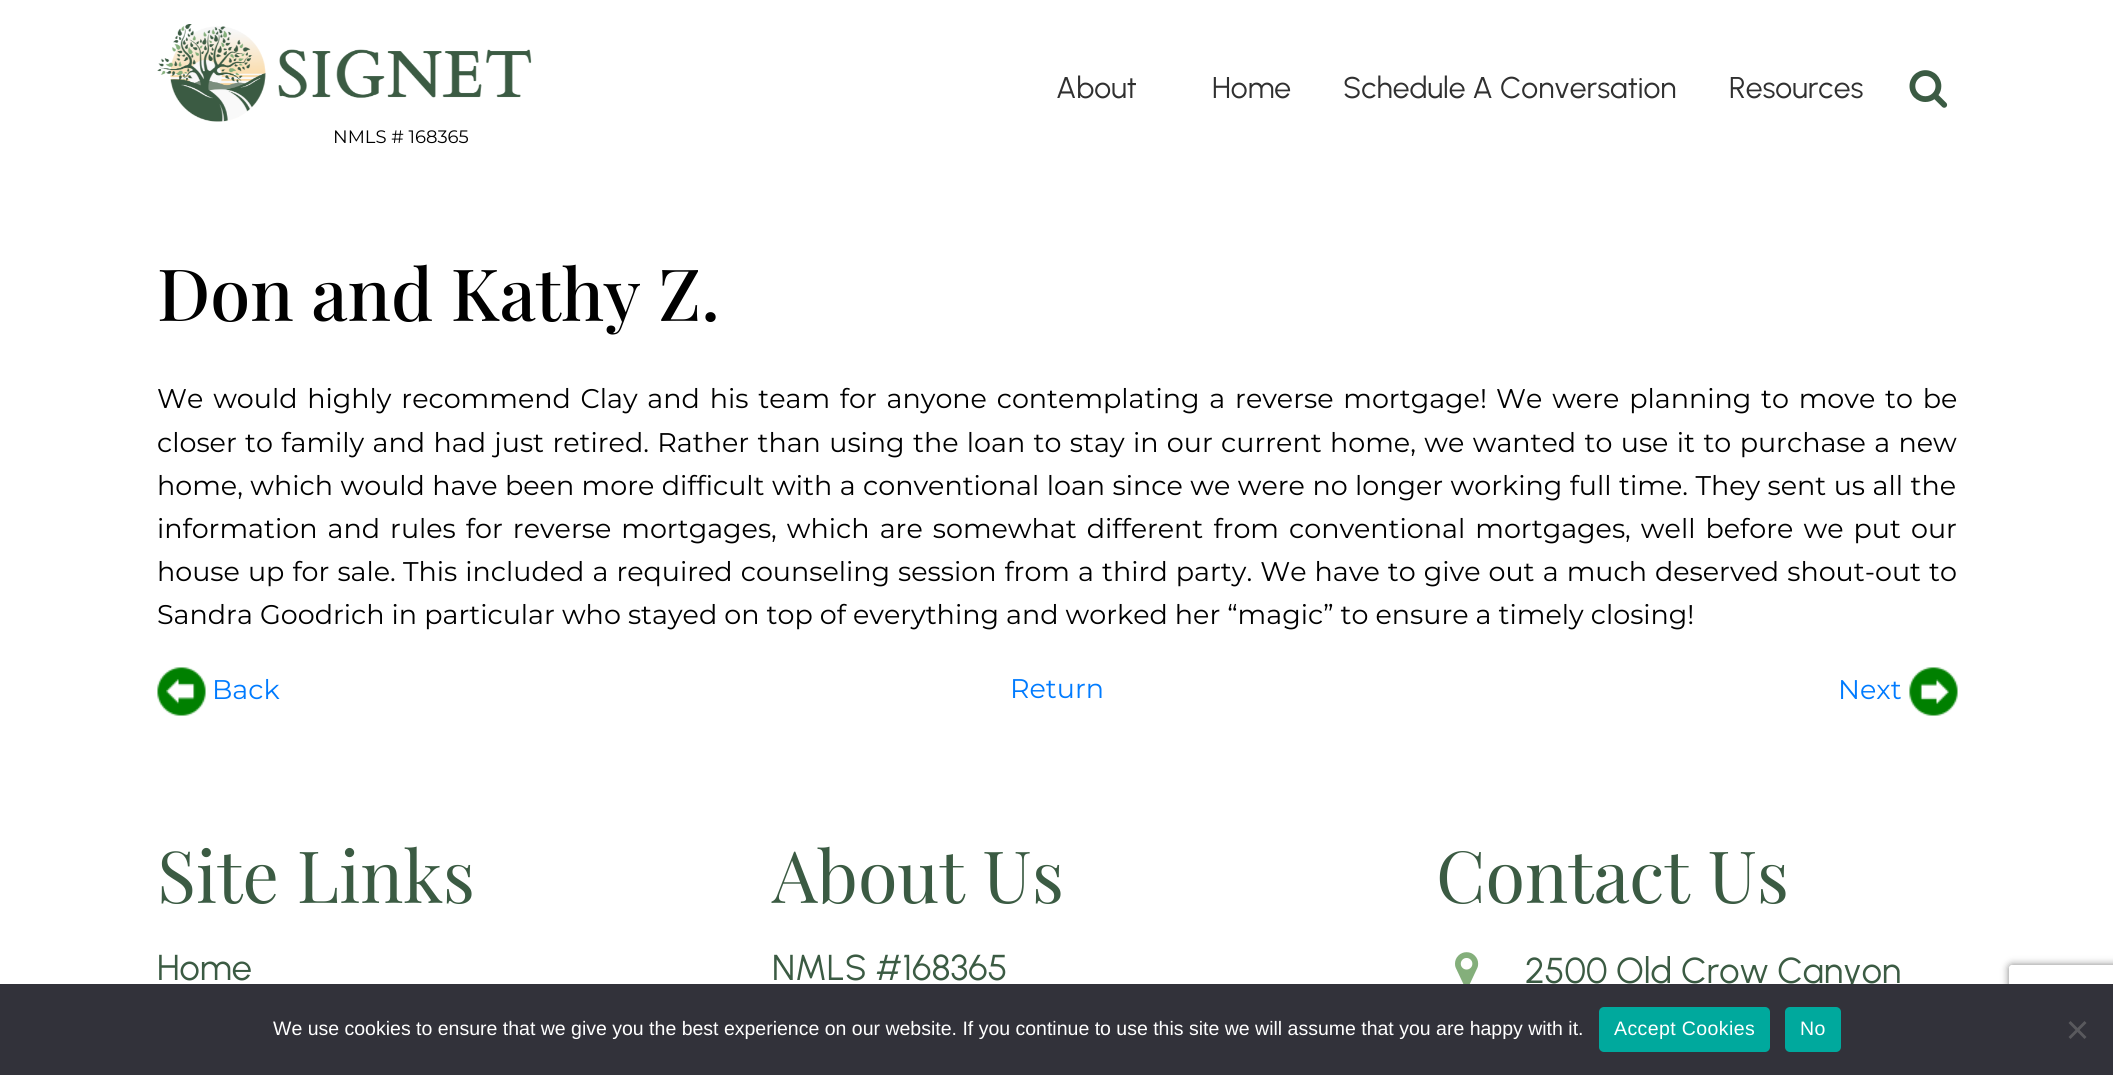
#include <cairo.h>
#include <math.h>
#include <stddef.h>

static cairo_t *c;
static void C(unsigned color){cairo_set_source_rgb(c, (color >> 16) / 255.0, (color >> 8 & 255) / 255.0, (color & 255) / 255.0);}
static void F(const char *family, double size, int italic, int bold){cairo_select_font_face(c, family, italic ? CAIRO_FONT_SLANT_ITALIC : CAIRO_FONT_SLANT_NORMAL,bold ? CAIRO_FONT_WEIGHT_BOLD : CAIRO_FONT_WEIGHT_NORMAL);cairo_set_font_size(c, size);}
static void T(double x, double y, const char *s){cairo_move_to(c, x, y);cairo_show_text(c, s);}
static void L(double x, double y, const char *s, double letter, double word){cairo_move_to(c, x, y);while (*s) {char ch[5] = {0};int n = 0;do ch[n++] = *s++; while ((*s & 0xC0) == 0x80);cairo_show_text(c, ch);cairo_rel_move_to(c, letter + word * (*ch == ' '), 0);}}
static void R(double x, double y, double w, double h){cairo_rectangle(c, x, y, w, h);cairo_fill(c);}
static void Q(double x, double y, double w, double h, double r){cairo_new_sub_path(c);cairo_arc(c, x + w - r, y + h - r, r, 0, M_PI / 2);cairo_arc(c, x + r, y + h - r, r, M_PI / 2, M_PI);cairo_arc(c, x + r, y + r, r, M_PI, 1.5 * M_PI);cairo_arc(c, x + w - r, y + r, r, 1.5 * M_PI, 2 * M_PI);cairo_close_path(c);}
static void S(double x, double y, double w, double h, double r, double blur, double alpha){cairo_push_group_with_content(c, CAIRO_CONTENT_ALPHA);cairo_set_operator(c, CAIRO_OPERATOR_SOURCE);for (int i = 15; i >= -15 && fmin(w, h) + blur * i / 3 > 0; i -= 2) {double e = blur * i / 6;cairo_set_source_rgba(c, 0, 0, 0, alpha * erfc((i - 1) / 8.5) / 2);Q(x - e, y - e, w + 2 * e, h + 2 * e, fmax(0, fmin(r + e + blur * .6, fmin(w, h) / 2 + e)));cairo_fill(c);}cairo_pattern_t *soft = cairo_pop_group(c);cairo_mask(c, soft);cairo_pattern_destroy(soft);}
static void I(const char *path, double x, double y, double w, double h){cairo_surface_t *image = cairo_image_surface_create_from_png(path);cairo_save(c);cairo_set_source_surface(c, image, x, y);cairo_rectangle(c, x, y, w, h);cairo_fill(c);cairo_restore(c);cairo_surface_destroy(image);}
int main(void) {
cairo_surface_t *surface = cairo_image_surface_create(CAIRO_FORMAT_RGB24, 2113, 1075);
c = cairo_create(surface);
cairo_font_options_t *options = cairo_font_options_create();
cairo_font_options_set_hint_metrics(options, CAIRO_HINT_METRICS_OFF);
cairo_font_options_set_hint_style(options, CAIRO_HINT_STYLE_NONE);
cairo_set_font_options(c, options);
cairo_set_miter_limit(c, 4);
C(0xffffff);
cairo_paint(c);
F("Urbanist",30,0,0);
C(0x303030);
T(1056,98,"About");
T(1212,98,"Home");
T(1343,98,"Schedule A Conversation");
T(1729,98,"Resources");
I("1.png",1909,70,39,38);
I("2.png",157,24,375,98);
F("Montserrat",18,0,0);
C(0x000000);
T(333,143,"NMLS # 168365");
F("Playfair Display Medium",72,0,0);
T(157,321,"Don and Kathy Z.");
F("Montserrat",27,0,0);
L(157,408,"We would highly recommend Clay and his team for anyone contemplating a reverse mortgage!",0,2.75);
L(1496,408,"We were planning to move to be",0,2.75);
L(157,452,"closer to family and had just retired. Rather than using the loan to stay in our current home, we wanted to use it to purchase a new",0,1.3);
L(157,495,"home, which would have been more difficult with a conventional loan since we were no longer working full time. They sent us all the",0,.4);
L(157,538,"information and rules for reverse mortgages, which are somewhat different from conventional mortgages, well before we put our",0,3);
L(157,581,"house up for sale.",0,1);
L(403,581,"This included a required counseling session from a third party. We have to give out a much deserved shout-out to",0,1);
T(157,624,"Sandra Goodrich in particular who stayed on top of everything and worked her “magic” to ensure a timely closing!");
I("3.png",157,667,49,49);
C(0x007bff);
T(212,699,"Back");
T(1010,698,"Return");
T(1838,699,"Next");
I("4.png",1909,667,49,49);
F("Playfair Display",72,0,0);
C(0x3b5b43);
T(157,903,"Site Links");
F("Urbanist",36,0,0);
T(157,980,"Home");
F("Playfair Display",72,0,0);
T(772,903,"About Us");
F("Urbanist",36,0,0);
T(772,980,"NMLS #168365");
F("Playfair Display",72,0,0);
T(1436,903,"Contact Us");
I("5.png",1455,952,24,32);
F("Urbanist",36,0,0);
T(1525,983,"2500 Old Crow Canyon");
cairo_save(c);
cairo_set_fill_rule(c,CAIRO_FILL_RULE_EVEN_ODD);
cairo_new_path(c);
cairo_move_to(c,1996,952);
cairo_line_to(c,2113,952);
cairo_line_to(c,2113,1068);
cairo_line_to(c,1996,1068);
cairo_close_path(c);
cairo_move_to(c,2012,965);
cairo_line_to(c,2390,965);
cairo_curve_to(c,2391.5,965,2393,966.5,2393,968);
cairo_line_to(c,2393,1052);
cairo_curve_to(c,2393,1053.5,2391.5,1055,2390,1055);
cairo_line_to(c,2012,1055);
cairo_curve_to(c,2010.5,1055,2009,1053.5,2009,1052);
cairo_line_to(c,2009,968);
cairo_curve_to(c,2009,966.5,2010.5,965,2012,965);
cairo_close_path(c);
cairo_clip(c);
C(0x808080);
S(2009,965,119,90,3,4,1);
cairo_restore(c);
C(0x32323a);
R(0,984,2113,91);
F("Liberation Sans",19.5,0,0);
C(0xffffff);
T(273,1035,"We use cookies to ensure that we give you the best experience on our website. If you continue to use this site we will assume that you are happy with it.");
C(0x00a99d);
Q(1599,1007,171,45,5);
cairo_fill(c);
C(0xffffff);
L(1614,1035,"Accept Cookies",.4,0);
C(0x00a99d);
Q(1785,1007,56,45,5);
cairo_fill(c);
C(0xffffff);
L(1800,1035,"No",.4,0);
C(0x59595d);
cairo_new_path(c);
cairo_move_to(c,2084.5,1021);
cairo_line_to(c,2086.5,1023);
cairo_line_to(c,2070.5,1039);
cairo_line_to(c,2068.5,1037);
cairo_close_path(c);
cairo_fill(c);
cairo_new_path(c);
cairo_move_to(c,2068.5,1023);
cairo_line_to(c,2070.5,1021);
cairo_line_to(c,2086.5,1037);
cairo_line_to(c,2084.5,1039);
cairo_close_path(c);
cairo_fill(c);
cairo_surface_write_to_png(surface, "o.png");
cairo_font_options_destroy(options);
cairo_destroy(c);
cairo_surface_destroy(surface);
return 0;
}
